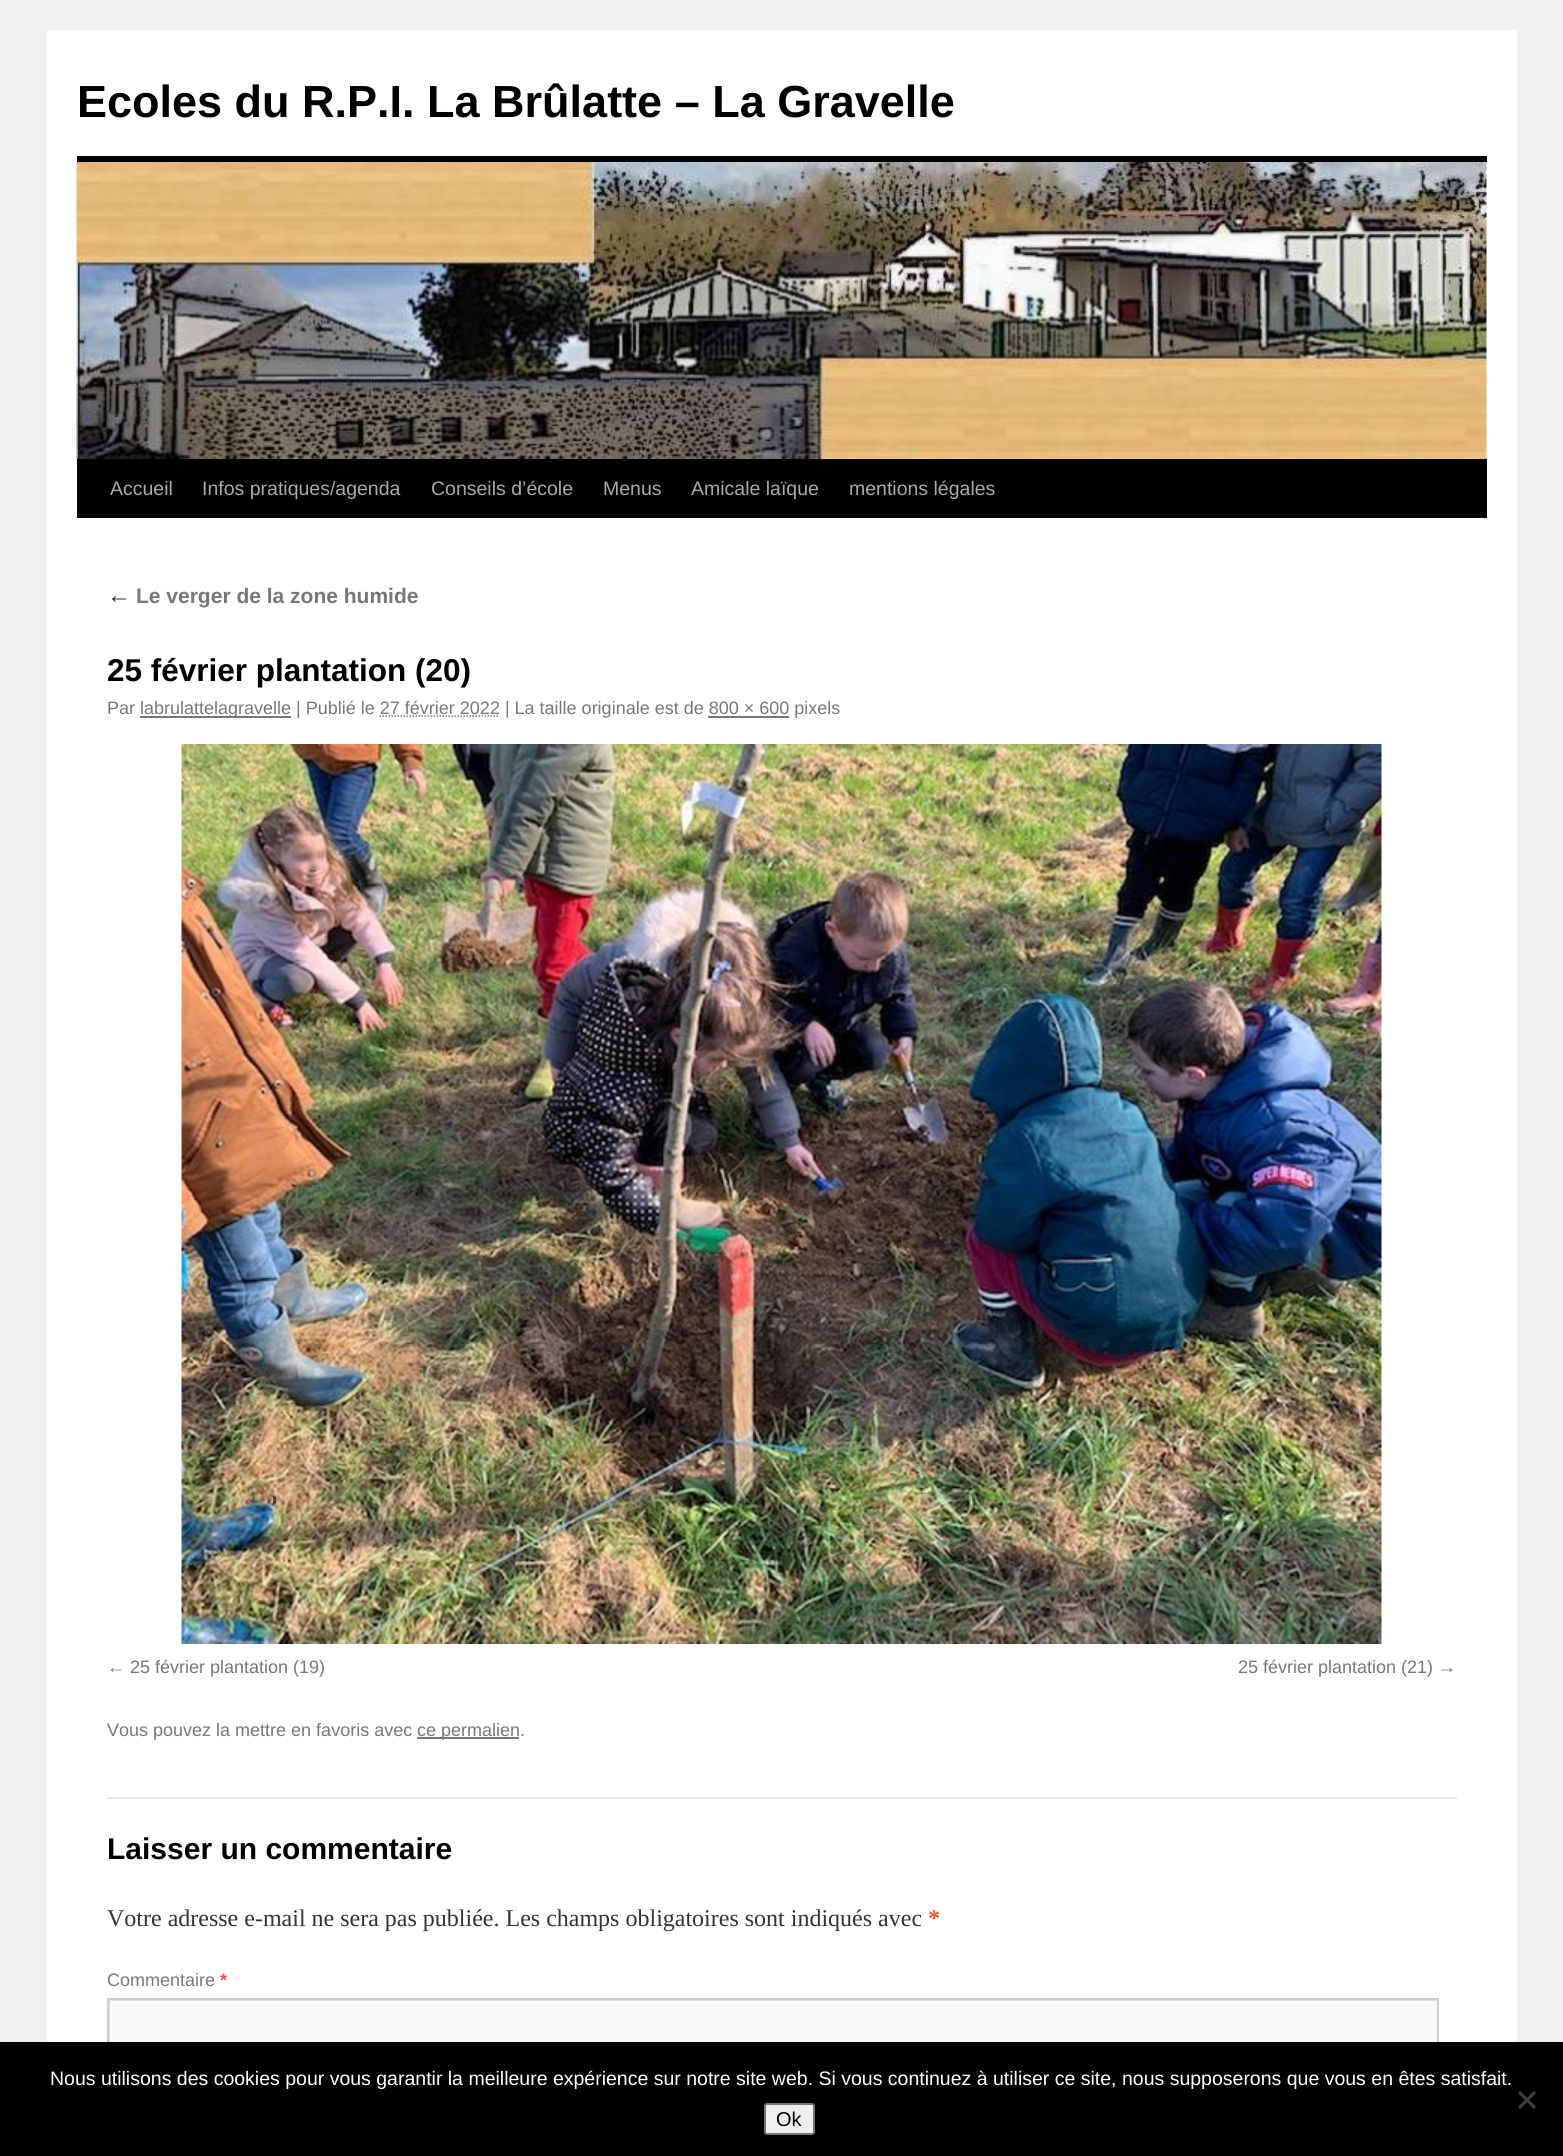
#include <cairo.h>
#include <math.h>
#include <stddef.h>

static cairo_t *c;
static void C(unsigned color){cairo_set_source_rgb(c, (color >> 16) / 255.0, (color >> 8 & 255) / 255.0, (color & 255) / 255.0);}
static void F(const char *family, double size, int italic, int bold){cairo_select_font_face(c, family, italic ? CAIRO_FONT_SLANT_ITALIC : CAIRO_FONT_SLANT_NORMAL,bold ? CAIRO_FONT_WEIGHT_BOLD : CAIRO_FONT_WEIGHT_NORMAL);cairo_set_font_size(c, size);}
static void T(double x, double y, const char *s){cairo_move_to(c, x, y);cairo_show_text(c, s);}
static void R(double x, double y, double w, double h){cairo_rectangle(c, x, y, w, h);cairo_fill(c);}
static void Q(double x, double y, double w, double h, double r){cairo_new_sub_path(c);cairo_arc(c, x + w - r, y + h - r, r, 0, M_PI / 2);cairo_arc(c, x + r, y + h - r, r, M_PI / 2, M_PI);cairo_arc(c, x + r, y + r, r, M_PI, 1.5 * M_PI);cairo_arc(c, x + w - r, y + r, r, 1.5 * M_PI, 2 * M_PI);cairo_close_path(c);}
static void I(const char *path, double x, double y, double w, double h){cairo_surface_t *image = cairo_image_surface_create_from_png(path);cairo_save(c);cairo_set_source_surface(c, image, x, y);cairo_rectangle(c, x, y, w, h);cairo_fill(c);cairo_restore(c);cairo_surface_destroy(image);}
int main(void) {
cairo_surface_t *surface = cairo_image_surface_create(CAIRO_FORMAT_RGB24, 1563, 2156);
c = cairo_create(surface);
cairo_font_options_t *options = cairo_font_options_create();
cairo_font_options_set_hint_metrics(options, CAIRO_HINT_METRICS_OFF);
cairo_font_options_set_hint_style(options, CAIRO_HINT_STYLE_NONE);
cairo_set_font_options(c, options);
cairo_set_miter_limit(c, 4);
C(0xf1f1f1);
cairo_paint(c);
C(0xffffff);
R(47,30,1470,2012);
F("Liberation Sans",45,0,1);
C(0x000000);
T(77,117,"Ecoles du R.P.I. La Brûlatte – La Gravelle");
R(77,156,1410,6);
R(77,459,1410,59);
I("1.png",76,162,1411,297);
F("Liberation Sans",19.5,0,0);
C(0xaaaaaa);
T(110,495,"Accueil");
T(202,495,"Infos pratiques/agenda");
T(431,495,"Conseils d’école");
T(603,495,"Menus");
T(691,495,"Amicale laïque");
T(849,495,"mentions légales");
F("Liberation Serif",24,1,0);
C(0x333333);
T(107,603,"←");
F("Liberation Sans",21,0,1);
C(0x777777);
T(136,603,"Le verger de la zone humide");
F("Liberation Sans",31.5,0,1);
C(0x000000);
T(107,681,"25 février plantation (20)");
F("Liberation Sans",18,0,0);
C(0x777777);
T(107,714,"Par");
R(140,716,151,2);
T(140,714,"labrulattelagravelle | Publié le 27 février 2022 | La taille originale est de 800 × 600 pixels");
cairo_new_path(c);
cairo_move_to(c,379.5,716);
cairo_line_to(c,499.5,716);
cairo_set_line_width(c,1.5);
cairo_set_dash(c,(double[]){1.5,1.5},2,0);
cairo_stroke(c);
R(708,716,81,2);
I("2.png",181,744,1201,900);
T(107,1673,"← 25 février plantation (19)");
T(1238,1673,"25 février plantation (21) →");
T(107,1736,"Vous pouvez la mettre en favoris avec");
R(417,1737,102,2);
T(417,1736,"ce permalien.");
C(0xe7e7e7);
R(107,1797,1350,2);
F("Liberation Sans",30,0,1);
C(0x000000);
T(107,1859,"Laisser un commentaire");
F("Liberation Serif",24,0,0);
C(0x333333);
T(107,1926,"Votre adresse e-mail ne sera pas publiée. Les champs obligatoires sont indiqués avec");
F("Liberation Serif",24,0,1);
C(0xff4b33);
T(928,1926,"*");
F("Liberation Sans",18,0,0);
C(0x777777);
T(107,1986,"Commentaire");
F("Liberation Sans",18,0,1);
C(0xff4b33);
T(220,1986,"*");
C(0xf9f9f9);
R(110,2001,1327,41);
cairo_save(c);
cairo_rectangle(c,108,2000,1329,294);
cairo_clip(c);
C(0xe0e0e0);
cairo_set_fill_rule(c,CAIRO_FILL_RULE_EVEN_ODD);
cairo_new_path(c);
cairo_move_to(c,-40,1851);
cairo_line_to(c,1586,1851);
cairo_line_to(c,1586,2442);
cairo_line_to(c,-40,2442);
cairo_close_path(c);
cairo_move_to(c,110,2001);
cairo_line_to(c,1438,2001);
cairo_line_to(c,1438,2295);
cairo_line_to(c,110,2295);
cairo_close_path(c);
cairo_fill(c);
cairo_restore(c);
cairo_rectangle(c,108,1999,1330,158);
C(0xcccccc);
cairo_set_line_width(c,2);
cairo_set_dash(c,NULL,0,0);
cairo_stroke(c);
C(0x000000);
R(0,2042,1563,114);
F("Liberation Sans",19.5,0,0);
C(0xffffff);
T(50,2085,"Nous utilisons des cookies pour vous garantir la meilleure expérience sur notre site web. Si vous continuez à utiliser ce site, nous supposerons que vous en êtes satisfait.");
C(0x404040);
cairo_new_path(c);
cairo_move_to(c,1534,2091);
cairo_line_to(c,1536,2093);
cairo_line_to(c,1520,2109);
cairo_line_to(c,1518,2107);
cairo_close_path(c);
cairo_fill(c);
cairo_new_path(c);
cairo_move_to(c,1518,2093);
cairo_line_to(c,1520,2091);
cairo_line_to(c,1536,2107);
cairo_line_to(c,1534,2109);
cairo_close_path(c);
cairo_fill(c);
C(0xefefef);
Q(765,2104,49,30,2);
cairo_fill_preserve(c);
C(0x767676);
cairo_stroke(c);
F("Liberation Sans",20,0,0);
C(0x000000);
T(776,2126,"Ok");
cairo_surface_write_to_png(surface, "o.png");
cairo_font_options_destroy(options);
cairo_destroy(c);
cairo_surface_destroy(surface);
return 0;
}
